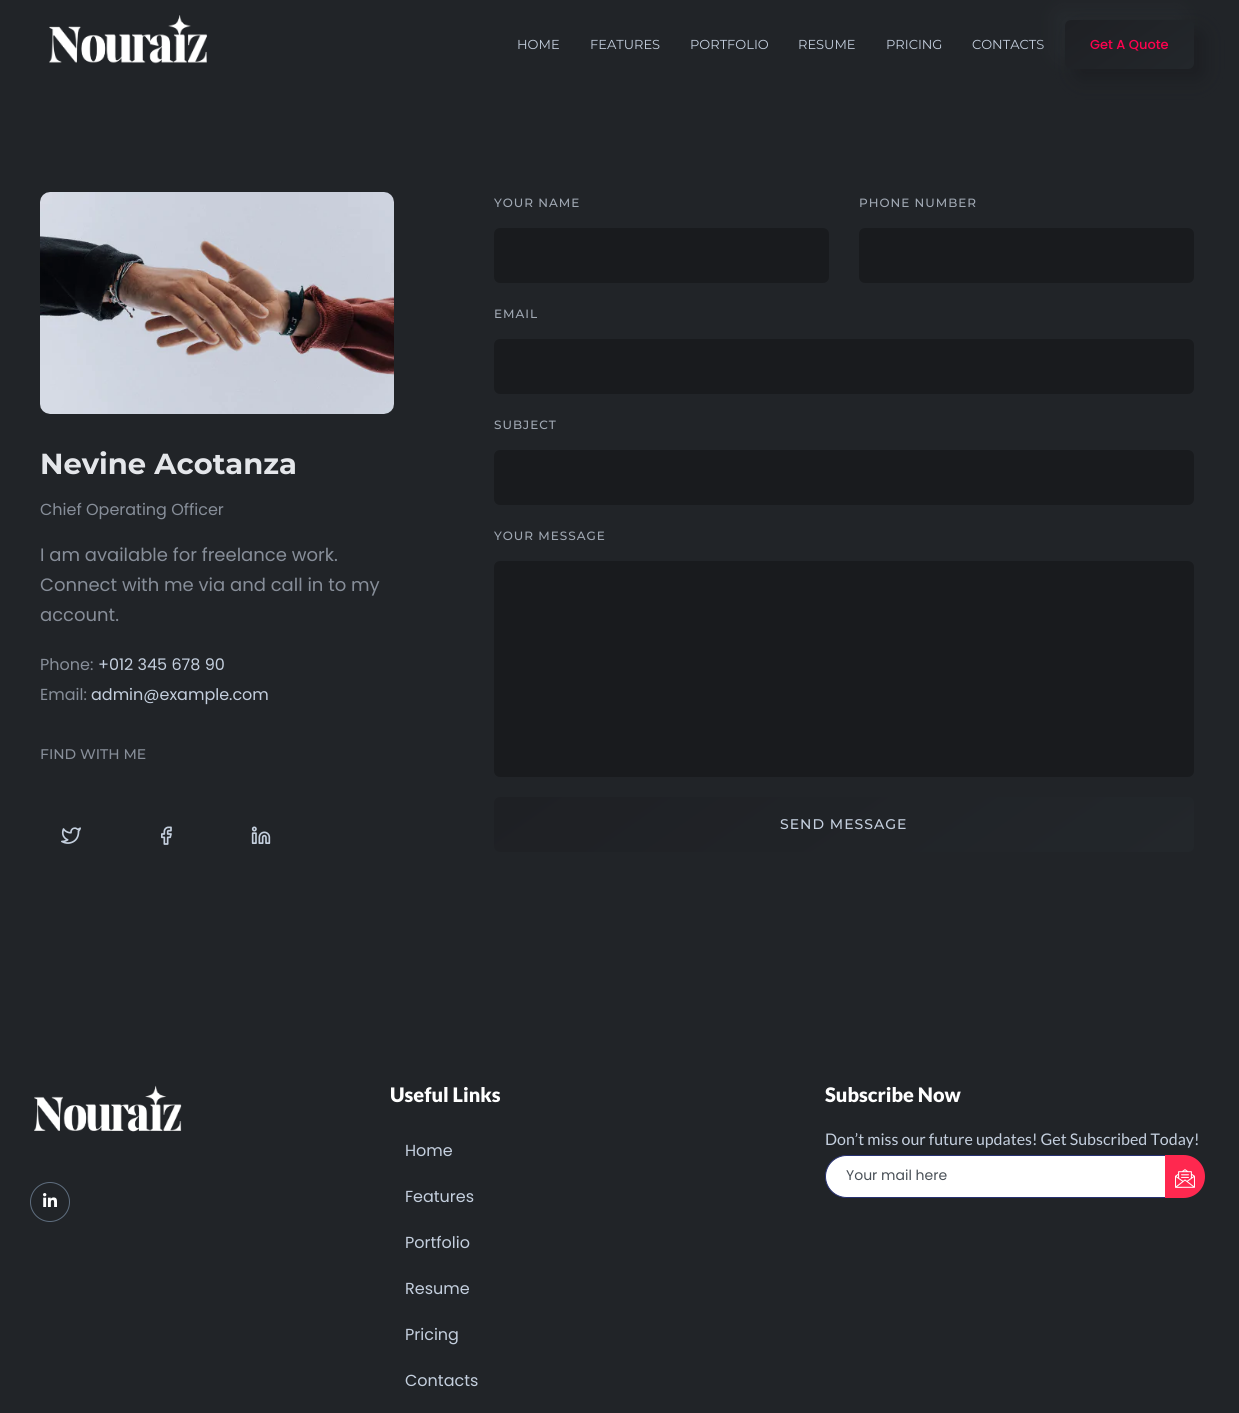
#include <cairo.h>
#include <math.h>
#include <stddef.h>

static cairo_t *c;
static void C(unsigned color){cairo_set_source_rgb(c, (color >> 16) / 255.0, (color >> 8 & 255) / 255.0, (color & 255) / 255.0);}
static void F(const char *family, double size, int italic, int bold){cairo_select_font_face(c, family, italic ? CAIRO_FONT_SLANT_ITALIC : CAIRO_FONT_SLANT_NORMAL,bold ? CAIRO_FONT_WEIGHT_BOLD : CAIRO_FONT_WEIGHT_NORMAL);cairo_set_font_size(c, size);}
static void T(double x, double y, const char *s){cairo_move_to(c, x, y);cairo_show_text(c, s);}
static void L(double x, double y, const char *s, double letter, double word){cairo_move_to(c, x, y);while (*s) {char ch[5] = {0};int n = 0;do ch[n++] = *s++; while ((*s & 0xC0) == 0x80);cairo_show_text(c, ch);cairo_rel_move_to(c, letter + word * (*ch == ' '), 0);}}
static void Q(double x, double y, double w, double h, double r){cairo_new_sub_path(c);cairo_arc(c, x + w - r, y + h - r, r, 0, M_PI / 2);cairo_arc(c, x + r, y + h - r, r, M_PI / 2, M_PI);cairo_arc(c, x + r, y + r, r, M_PI, 1.5 * M_PI);cairo_arc(c, x + w - r, y + r, r, 1.5 * M_PI, 2 * M_PI);cairo_close_path(c);}
static void S(double x, double y, double w, double h, double r, double blur, double alpha){cairo_push_group_with_content(c, CAIRO_CONTENT_ALPHA);cairo_set_operator(c, CAIRO_OPERATOR_SOURCE);for (int i = 15; i >= -15 && fmin(w, h) + blur * i / 3 > 0; i -= 2) {double e = blur * i / 6;cairo_set_source_rgba(c, 0, 0, 0, alpha * erfc((i - 1) / 8.5) / 2);Q(x - e, y - e, w + 2 * e, h + 2 * e, fmax(0, fmin(r + e + blur * .6, fmin(w, h) / 2 + e)));cairo_fill(c);}cairo_pattern_t *soft = cairo_pop_group(c);cairo_mask(c, soft);cairo_pattern_destroy(soft);}
static void I(const char *path, double x, double y, double w, double h){cairo_surface_t *image = cairo_image_surface_create_from_png(path);cairo_save(c);cairo_set_source_surface(c, image, x, y);cairo_rectangle(c, x, y, w, h);cairo_fill(c);cairo_restore(c);cairo_surface_destroy(image);}
int main(void) {
cairo_surface_t *surface = cairo_image_surface_create(CAIRO_FORMAT_RGB24, 1239, 1413);
c = cairo_create(surface);
cairo_font_options_t *options = cairo_font_options_create();
cairo_font_options_set_hint_metrics(options, CAIRO_HINT_METRICS_OFF);
cairo_font_options_set_hint_style(options, CAIRO_HINT_STYLE_NONE);
cairo_set_font_options(c, options);
cairo_set_miter_limit(c, 4);
cairo_pattern_t *gradient;
C(0x212428);
cairo_paint(c);
I("1.png",49,15,159,49);
F("Montserrat",13,0,0);
C(0xc4cfde);
T(517,49,"HOME");
T(590,49,"FEATURES");
T(690,49,"PORTFOLIO");
T(798,49,"RESUME");
T(886,49,"PRICING");
T(972,49,"CONTACTS");
C(0x262a2e);
S(1055,10,129,49,6,9.5,1);
C(0x1c1e22);
S(1075,30,129,49,6,9.5,1);
gradient = cairo_pattern_create_linear(1097,-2.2,1162,91);
cairo_pattern_add_color_stop_rgba(gradient,0,0.118,0.125,0.141,1);
cairo_pattern_add_color_stop_rgba(gradient,1,0.137,0.153,0.169,1);
cairo_set_source(c,gradient);
cairo_pattern_destroy(gradient);
Q(1065,20,129,49,6);
cairo_fill(c);
F("Poppins Medium",13,0,0);
C(0xff014f);
T(1090,49,"Get A Quote");
I("2.png",40,192,354,222);
F("Montserrat",29,0,1);
C(0xe4e6ea);
T(40,474,"Nevine Acotanza");
F("Poppins",16,0,0);
C(0x878e99);
T(40,515,"Chief Operating Officer");
F("Poppins",18,0,0);
T(40,561,"I am available for freelance work.");
T(40,591,"Connect with me via and call in to my");
T(40,621,"account.");
F("Poppins",16,0,0);
T(40,670,"Phone:");
C(0xc4cfde);
T(98,670,"+012 345 678 90");
C(0x878e99);
T(40,700,"Email:");
C(0xc4cfde);
T(91,700,"admin@example.com");
F("Montserrat Medium",14,0,0);
C(0x878e99);
T(40,759,"FIND WITH ME");
I("3.png",61,827,20,17);
I("4.png",161,826,11,19);
I("5.png",251,826,20,18);
F("Montserrat Medium",12,0,0);
C(0xa0a8b3);
L(494,207,"YOUR NAME",1,0);
C(0x191b1e);
Q(494,228,335,55,6);
cairo_fill(c);
C(0xa0a8b3);
L(859,207,"PHONE NUMBER",1,0);
C(0x191b1e);
Q(859,228,335,55,6);
cairo_fill(c);
C(0xa0a8b3);
L(494,318,"EMAIL",1,0);
C(0x191b1e);
Q(494,339,700,55,6);
cairo_fill(c);
C(0xa0a8b3);
L(494,429,"SUBJECT",1,0);
C(0x191b1e);
Q(494,450,700,55,6);
cairo_fill(c);
C(0xa0a8b3);
L(494,540,"YOUR MESSAGE",1,0);
C(0x191b1e);
Q(494,561,700,216,6);
cairo_fill(c);
gradient = cairo_pattern_create_linear(716,642,972,1007);
cairo_pattern_add_color_stop_rgba(gradient,0,0.118,0.125,0.141,1);
cairo_pattern_add_color_stop_rgba(gradient,1,0.137,0.153,0.169,1);
cairo_set_source(c,gradient);
cairo_pattern_destroy(gradient);
Q(494,797,700,55,6);
cairo_fill(c);
F("Montserrat Medium",14,0,0);
C(0xc4cfde);
L(780,829,"SEND MESSAGE",1,0);
I("6.png",34,1085,148,47);
cairo_arc(c,50,1202,19.5,0,2 * M_PI);
C(0x5e6d7e);
cairo_set_line_width(c,1);
cairo_stroke(c);
I("7.png",43,1193,14,14);
F("Lato Black",20,0,0);
C(0xffffff);
T(390,1102,"Useful Links");
F("Poppins",16,0,0);
C(0xc4cfde);
T(405,1156,"Home");
T(405,1202,"Features");
T(405,1248,"Portfolio");
T(405,1294,"Resume");
T(405,1340,"Pricing");
T(405,1386,"Contacts");
F("Lato Black",20,0,0);
C(0xffffff);
T(825,1102,"Subscribe Now");
F("Lato",16,0,0);
C(0xc4cfde);
T(825,1145,"Don’t miss our future updates! Get Subscribed Today!");
C(0xffffff);
cairo_new_path(c);
cairo_move_to(c,846.5,1155.5);
cairo_line_to(c,1166.5,1155.5);
cairo_line_to(c,1166.5,1197.5);
cairo_line_to(c,846.5,1197.5);
cairo_curve_to(c,835,1197.5,825.5,1188,825.5,1176.5);
cairo_curve_to(c,825.5,1165,835,1155.5,846.5,1155.5);
cairo_close_path(c);
cairo_fill_preserve(c);
C(0x273171);
cairo_stroke(c);
F("Poppins",14,0,0);
C(0x495057);
T(846,1180,"Your mail here");
C(0xff284f);
cairo_new_path(c);
cairo_move_to(c,1165,1155);
cairo_line_to(c,1183.5,1155);
cairo_curve_to(c,1195.5,1155,1205,1164.5,1205,1176.5);
cairo_curve_to(c,1205,1188.5,1195.5,1198,1183.5,1198);
cairo_line_to(c,1165,1198);
cairo_close_path(c);
cairo_fill(c);
I("8.png",1175,1169,20,19);
cairo_surface_write_to_png(surface, "o.png");
cairo_font_options_destroy(options);
cairo_destroy(c);
cairo_surface_destroy(surface);
return 0;
}
